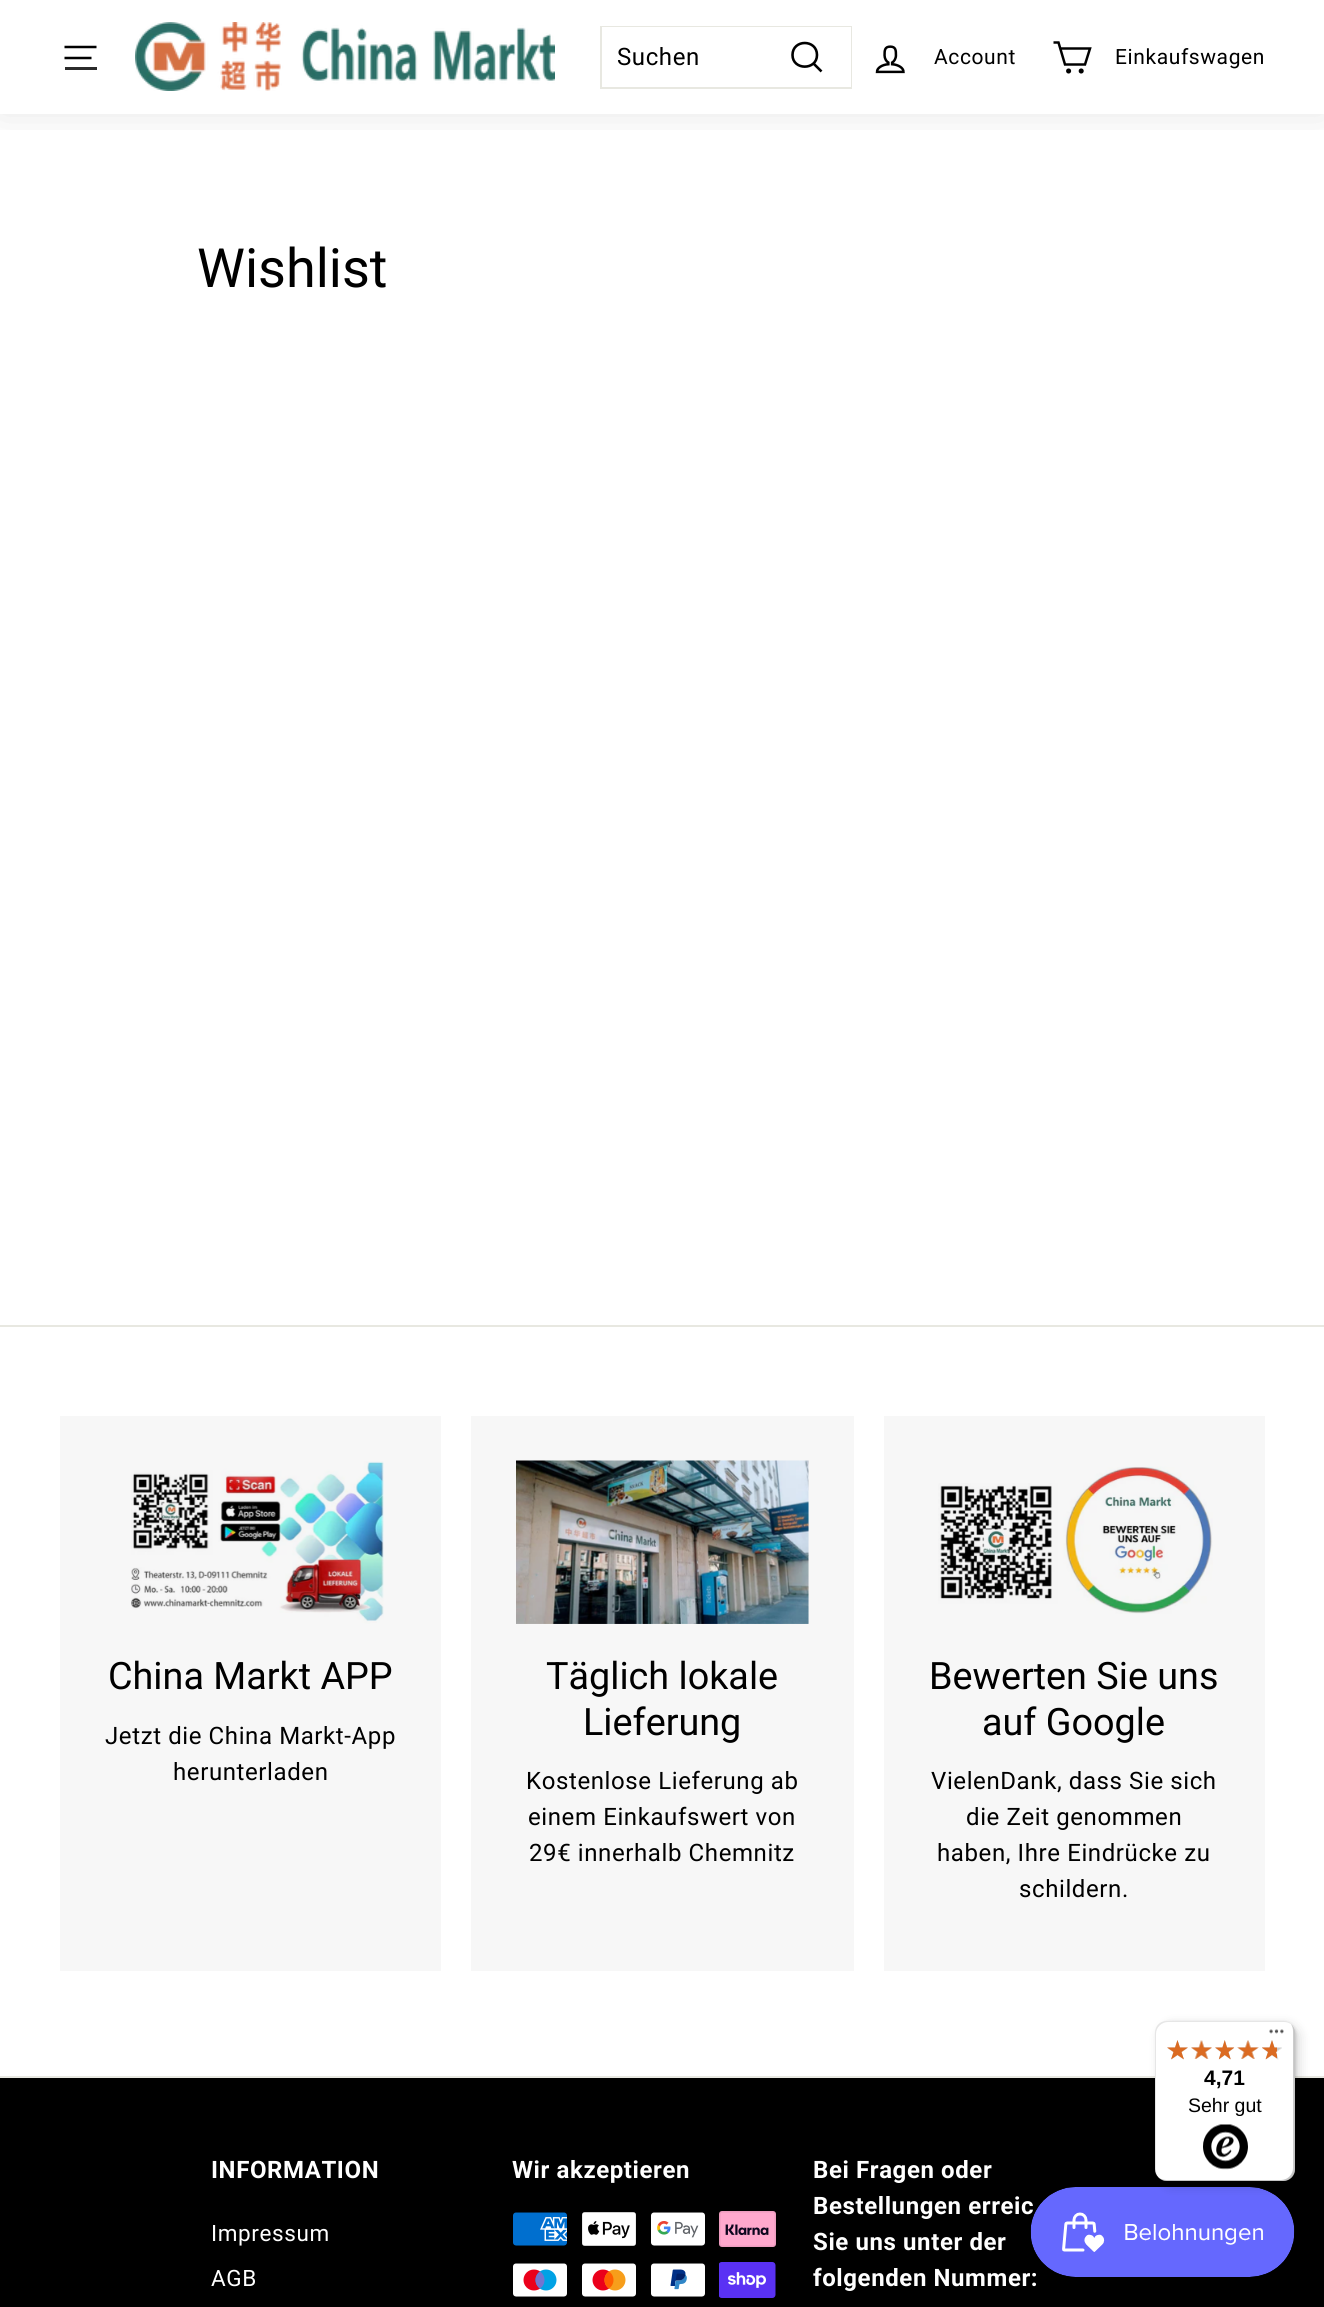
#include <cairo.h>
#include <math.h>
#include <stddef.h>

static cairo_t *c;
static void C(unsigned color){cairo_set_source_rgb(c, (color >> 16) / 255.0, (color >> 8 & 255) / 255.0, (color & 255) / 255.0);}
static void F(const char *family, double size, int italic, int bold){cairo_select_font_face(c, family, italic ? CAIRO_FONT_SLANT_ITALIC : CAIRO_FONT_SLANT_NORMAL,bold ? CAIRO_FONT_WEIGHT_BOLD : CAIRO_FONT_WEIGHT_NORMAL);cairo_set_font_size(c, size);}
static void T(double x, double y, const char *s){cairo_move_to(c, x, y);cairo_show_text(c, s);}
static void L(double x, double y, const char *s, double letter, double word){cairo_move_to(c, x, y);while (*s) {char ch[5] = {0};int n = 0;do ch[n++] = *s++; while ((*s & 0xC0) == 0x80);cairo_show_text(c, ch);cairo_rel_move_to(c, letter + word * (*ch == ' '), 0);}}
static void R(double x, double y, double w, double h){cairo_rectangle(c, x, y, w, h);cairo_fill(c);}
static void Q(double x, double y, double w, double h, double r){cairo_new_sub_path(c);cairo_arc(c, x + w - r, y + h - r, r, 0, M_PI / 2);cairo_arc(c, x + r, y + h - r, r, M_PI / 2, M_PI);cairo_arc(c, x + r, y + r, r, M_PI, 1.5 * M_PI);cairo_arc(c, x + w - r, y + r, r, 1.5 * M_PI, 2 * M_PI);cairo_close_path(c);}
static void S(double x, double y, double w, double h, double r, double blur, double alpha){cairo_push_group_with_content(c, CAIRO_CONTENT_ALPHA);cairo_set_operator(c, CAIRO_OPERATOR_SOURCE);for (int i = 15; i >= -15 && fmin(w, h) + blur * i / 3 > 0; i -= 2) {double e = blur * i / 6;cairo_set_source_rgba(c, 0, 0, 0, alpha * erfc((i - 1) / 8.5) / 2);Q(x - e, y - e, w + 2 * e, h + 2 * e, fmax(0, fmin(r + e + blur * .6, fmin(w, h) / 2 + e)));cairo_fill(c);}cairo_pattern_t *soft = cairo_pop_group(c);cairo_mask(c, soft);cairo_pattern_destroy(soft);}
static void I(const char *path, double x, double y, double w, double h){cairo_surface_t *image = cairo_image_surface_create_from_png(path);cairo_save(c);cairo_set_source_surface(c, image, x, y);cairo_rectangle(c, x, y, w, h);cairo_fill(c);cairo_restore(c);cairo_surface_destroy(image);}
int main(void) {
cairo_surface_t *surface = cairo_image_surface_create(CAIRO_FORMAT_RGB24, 1324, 2307);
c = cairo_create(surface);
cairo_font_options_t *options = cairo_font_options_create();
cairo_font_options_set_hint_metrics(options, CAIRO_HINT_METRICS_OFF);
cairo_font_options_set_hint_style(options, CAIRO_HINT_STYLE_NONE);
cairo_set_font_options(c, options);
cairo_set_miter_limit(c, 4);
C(0xffffff);
cairo_paint(c);
C(0xf7f7f7);
R(884,1416,381,555);
R(471,1416,383,555);
R(60,1416,381,555);
cairo_save(c);
cairo_rectangle(c,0,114,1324,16);
cairo_clip(c);
C(0x000000);
S(0,0,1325,114,0,19,.1);
cairo_restore(c);
cairo_new_path(c);
cairo_move_to(c,64.5,47);
cairo_line_to(c,96.5,47);
cairo_move_to(c,64.5,58);
cairo_line_to(c,91.5,58);
C(0x000000);
cairo_set_line_width(c,2.5);
cairo_stroke(c);
C(0x2b2b2b);
R(65,67,32,3);
I("1.png",135,22,420,69);
cairo_rectangle(c,601,27,250,61);
C(0xe8e8e1);
cairo_set_line_width(c,2);
cairo_stroke(c);
C(0xffffff);
R(602,27,249,60);
F("Roboto",24,0,0);
C(0x000000);
L(617,65,"Suchen",.6,0);
cairo_new_path(c);
cairo_move_to(c,817,55);
cairo_curve_to(c,817,70.5,792.5,70.5,792.5,55);
cairo_curve_to(c,792.5,39,817,39,817,55);
cairo_close_path(c);
cairo_move_to(c,821.5,71.5);
cairo_line_to(c,813.5,63.5);
cairo_set_line_width(c,2.6);
cairo_stroke(c);
I("2.png",875,45,30,29);
F("Roboto",21,0,0);
L(934,64,"Account",.6,0);
cairo_new_path(c);
cairo_move_to(c,1060.5,48.5);
cairo_line_to(c,1090,48.5);
cairo_line_to(c,1085,64.5);
cairo_line_to(c,1065,64.5);
cairo_line_to(c,1058.5,42.5);
cairo_line_to(c,1053.5,42.5);
cairo_set_line_width(c,2.5);
cairo_stroke(c);
cairo_arc(c,1068.6,71,1.3,0,2 * M_PI);
cairo_stroke(c);
cairo_arc(c,1081.2,71,1.3,0,2 * M_PI);
cairo_stroke(c);
L(1115,64,"Einkaufswagen",.6,0);
F("Roboto",54,0,0);
T(197,287,"Wishlist");
C(0xe8e8e1);
R(0,1325,1324,2);
I("3.png",131,1461,253,163);
F("Roboto",37.75,0,0);
C(0x000000);
T(108,1689,"China Markt APP");
F("Roboto",24,0,0);
L(105,1744,"Jetzt die China Markt-App",.6,0);
L(173,1780,"herunterladen",.6,0);
I("4.png",516,1460,293,164);
F("Roboto",37.75,0,0);
T(546,1689,"Täglich lokale");
T(583,1735,"Lieferung");
F("Roboto",24,0,0);
L(526,1789,"Kostenlose Lieferung ab",.6,0);
L(528,1825,"einem Einkaufswert von",.6,0);
L(529,1861,"29€ innerhalb Chemnitz",.6,0);
I("5.png",938,1466,275,148);
F("Roboto",37.75,0,0);
T(929,1689,"Bewerten Sie uns");
T(982,1735,"auf Google");
F("Roboto",24,0,0);
L(931,1789,"VielenDank, dass Sie sich",.6,0);
L(966,1825,"die Zeit genommen",.6,0);
L(937,1861,"haben, Ihre Eindrücke zu",.6,0);
L(1019,1897,"schildern.",.6,0);
R(0,2078,1324,229);
C(0xe8e8e1);
R(0,2076,1324,2);
F("Roboto",24,0,1);
C(0xffffff);
L(211,2178,"INFORMATION",.6,0);
F("Roboto",22.5,0,0);
L(211,2241,"Impressum",.6,0);
L(211,2286,"AGB",.6,0);
F("Roboto",24,0,1);
L(512,2178,"Wir akzeptieren",.6,0);
I("6.png",513,2212,54,34);
I("7.png",582,2212,54,34);
I("8.png",651,2212,54,34);
I("9.png",719,2211,57,36);
I("10.png",513,2263,54,34);
I("11.png",582,2263,54,34);
I("12.png",651,2263,54,34);
I("13.png",719,2262,57,36);
L(813,2178,"Bei Fragen oder",.6,0);
L(813,2214,"Bestellungen erreic",.6,0);
L(813,2250,"Sie uns unter der",.6,0);
L(813,2286,"folgenden Nummer:",.6,0);
I("26.png",1030,2187,265,90);
C(0x000000);
S(1160,2025,139,161,12,6,.15);
S(1157,2022,139,161,12,1.5,.15);
C(0xffffff);
Q(1155,2021,140,160,12);
cairo_fill(c);
cairo_set_source_rgba(c,0,0,0,0.1);
cairo_new_path(c);
cairo_move_to(c,1168,2022);
cairo_line_to(c,1284,2022);
cairo_curve_to(c,1287,2022,1289,2023,1291,2024);
cairo_curve_to(c,1289,2022,1286,2021,1283,2021);
cairo_line_to(c,1167,2021);
cairo_curve_to(c,1160,2021,1155,2026,1155,2033);
cairo_line_to(c,1155,2169);
cairo_curve_to(c,1155,2173,1157,2176,1159,2178);
cairo_curve_to(c,1157,2176,1156,2173,1156,2170);
cairo_line_to(c,1156,2034);
cairo_curve_to(c,1156,2027,1162,2022,1168,2022);
cairo_close_path(c);
cairo_fill(c);
cairo_set_source_rgba(c,0,0,0,0.2);
cairo_new_path(c);
cairo_move_to(c,1158,2177);
cairo_curve_to(c,1160,2179,1163,2181,1167,2181);
cairo_line_to(c,1283,2181);
cairo_curve_to(c,1290,2181,1295,2176,1295,2169);
cairo_line_to(c,1295,2033);
cairo_curve_to(c,1295,2029,1293,2026,1291,2024);
cairo_curve_to(c,1292,2026,1293,2028,1293,2031);
cairo_line_to(c,1293,2168);
cairo_curve_to(c,1293,2174,1288,2180,1281,2180);
cairo_line_to(c,1166,2180);
cairo_curve_to(c,1163,2180,1160,2179,1158,2177);
cairo_close_path(c);
cairo_fill(c);
cairo_set_source_rgba(c,0.196,0.196,0.196,0.2);
cairo_new_path(c);
cairo_move_to(c,1159,2178);
cairo_curve_to(c,1161,2180,1164,2181,1167,2181);
cairo_line_to(c,1283,2181);
cairo_curve_to(c,1290,2181,1295,2176,1295,2169);
cairo_line_to(c,1295,2033);
cairo_curve_to(c,1295,2029,1293,2026,1291,2024);
cairo_curve_to(c,1293,2026,1294,2029,1294,2032);
cairo_line_to(c,1294,2168);
cairo_curve_to(c,1294,2175,1288,2180,1282,2180);
cairo_line_to(c,1166,2180);
cairo_curve_to(c,1163,2180,1161,2179,1159,2178);
cairo_close_path(c);
cairo_fill(c);
cairo_set_source_rgba(c,1,1,1,0.3);
cairo_new_path(c);
cairo_move_to(c,1158,2177);
cairo_curve_to(c,1160,2179,1163,2181,1167,2181);
cairo_line_to(c,1283,2181);
cairo_curve_to(c,1290,2181,1295,2176,1295,2169);
cairo_line_to(c,1295,2033);
cairo_curve_to(c,1295,2029,1293,2026,1291,2024);
cairo_curve_to(c,1293,2026,1294,2029,1294,2032);
cairo_line_to(c,1294,2168);
cairo_curve_to(c,1294,2175,1288,2180,1282,2180);
cairo_line_to(c,1166,2180);
cairo_curve_to(c,1163,2180,1160,2179,1158,2177);
cairo_close_path(c);
cairo_fill(c);
I("14.png",1269,2029,15,5);
I("15.png",1167,2040,21,20);
I("16.png",1191,2040,21,19);
I("17.png",1215,2040,19,20);
I("18.png",1237,2040,22,19);
I("19.png",1262,2040,20,20);
I("20.png",1167,2040,21,20);
I("21.png",1191,2040,21,19);
I("22.png",1215,2040,20,20);
I("23.png",1237,2040,22,19);
I("24.png",1262,2040,15,20);
F("Liberation Sans",21,0,1);
C(0x000000);
T(1204,2085,"4,71");
F("Liberation Sans",19.5,0,0);
T(1188,2112,"Sehr gut");
I("25.png",1203,2124,45,46);
cairo_surface_write_to_png(surface, "o.png");
cairo_font_options_destroy(options);
cairo_destroy(c);
cairo_surface_destroy(surface);
return 0;
}
